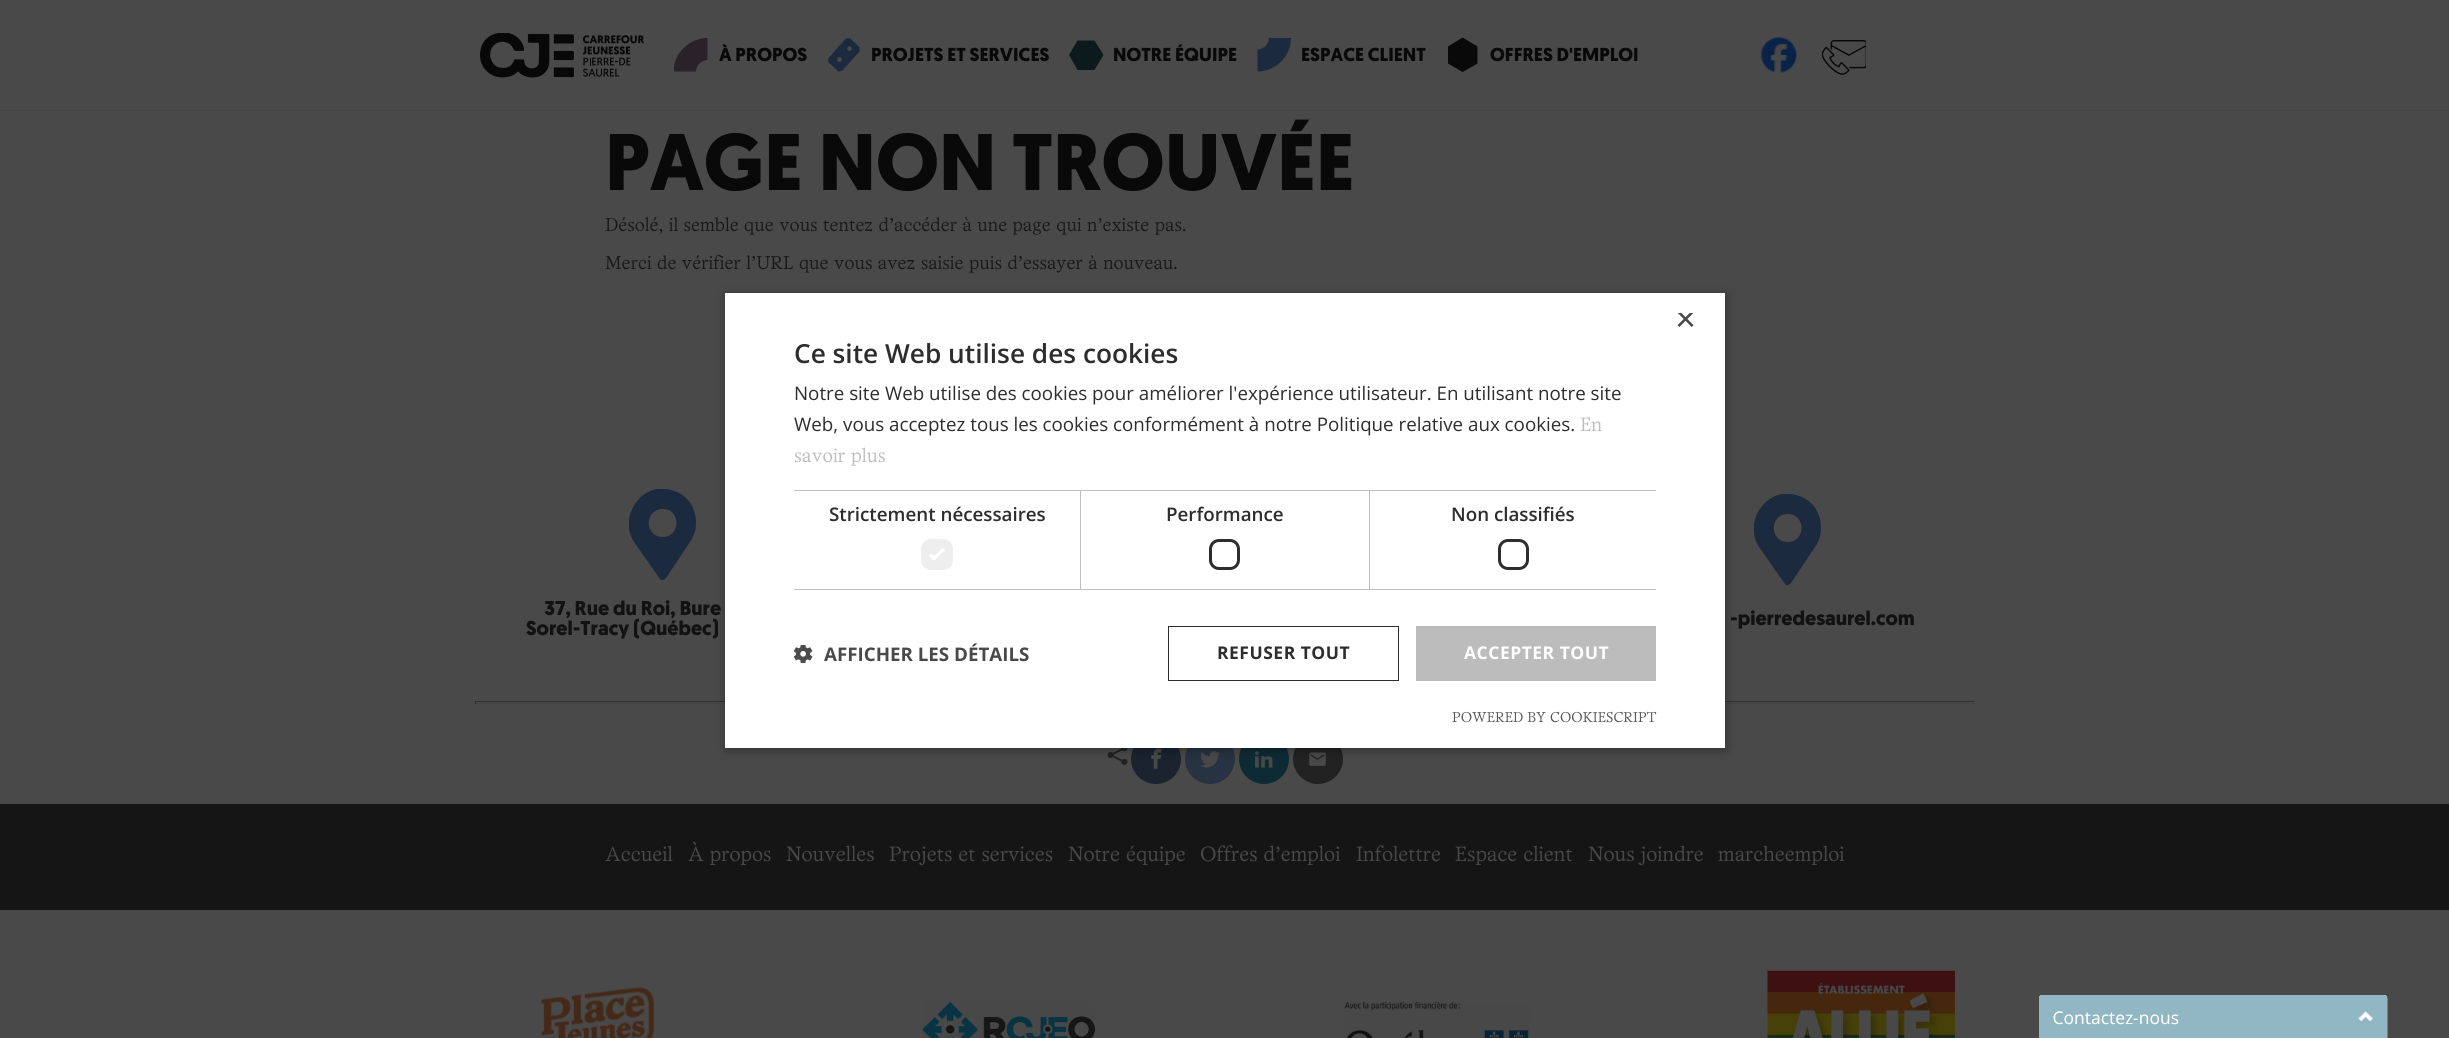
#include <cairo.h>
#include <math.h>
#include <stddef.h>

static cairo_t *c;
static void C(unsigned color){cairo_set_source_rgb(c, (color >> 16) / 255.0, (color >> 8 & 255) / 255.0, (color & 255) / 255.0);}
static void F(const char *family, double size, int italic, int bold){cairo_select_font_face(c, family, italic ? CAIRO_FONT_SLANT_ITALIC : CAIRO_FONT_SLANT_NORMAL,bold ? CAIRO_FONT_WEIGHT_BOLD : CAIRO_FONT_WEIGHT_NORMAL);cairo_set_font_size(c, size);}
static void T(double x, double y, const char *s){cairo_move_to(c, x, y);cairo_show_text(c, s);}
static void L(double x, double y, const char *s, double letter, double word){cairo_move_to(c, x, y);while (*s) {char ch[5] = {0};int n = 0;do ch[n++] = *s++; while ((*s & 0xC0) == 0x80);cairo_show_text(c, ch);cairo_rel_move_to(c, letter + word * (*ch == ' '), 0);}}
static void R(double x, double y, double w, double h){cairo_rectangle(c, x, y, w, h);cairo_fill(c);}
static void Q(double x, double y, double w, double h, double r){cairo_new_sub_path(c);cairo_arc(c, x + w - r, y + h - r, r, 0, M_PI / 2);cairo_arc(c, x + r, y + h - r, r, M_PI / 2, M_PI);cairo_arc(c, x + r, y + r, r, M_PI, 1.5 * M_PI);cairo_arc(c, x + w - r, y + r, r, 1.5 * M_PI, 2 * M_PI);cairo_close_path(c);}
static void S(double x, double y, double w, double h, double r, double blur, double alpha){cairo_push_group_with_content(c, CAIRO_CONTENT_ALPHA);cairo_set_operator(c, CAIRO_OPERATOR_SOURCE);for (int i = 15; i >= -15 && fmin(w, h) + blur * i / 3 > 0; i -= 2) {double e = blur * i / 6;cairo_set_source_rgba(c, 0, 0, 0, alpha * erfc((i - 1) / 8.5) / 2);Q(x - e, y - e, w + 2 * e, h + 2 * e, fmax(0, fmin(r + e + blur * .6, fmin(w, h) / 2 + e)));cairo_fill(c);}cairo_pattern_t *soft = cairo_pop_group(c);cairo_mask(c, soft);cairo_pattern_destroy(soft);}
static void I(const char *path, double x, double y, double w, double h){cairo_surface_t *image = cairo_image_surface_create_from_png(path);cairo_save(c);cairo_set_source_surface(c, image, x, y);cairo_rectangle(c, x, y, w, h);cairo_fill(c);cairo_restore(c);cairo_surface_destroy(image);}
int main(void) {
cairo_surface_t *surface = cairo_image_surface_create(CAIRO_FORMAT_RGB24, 2449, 1038);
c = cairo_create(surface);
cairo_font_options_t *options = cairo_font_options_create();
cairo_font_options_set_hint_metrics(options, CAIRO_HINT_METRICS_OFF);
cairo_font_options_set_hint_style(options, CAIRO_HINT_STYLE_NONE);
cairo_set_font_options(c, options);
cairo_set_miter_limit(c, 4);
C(0x494949);
cairo_paint(c);
cairo_rectangle(c,-.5,-.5,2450,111);
C(0x444444);
cairo_set_line_width(c,1);
cairo_stroke(c);
I("1.png",480,33,164,45);
cairo_save(c);
cairo_rectangle(c,674,38,35,35);
cairo_clip(c);
C(0x2a2129);
cairo_new_path(c);
cairo_move_to(c,707.5,60);
cairo_line_to(c,707.5,38);
cairo_curve_to(c,689,38,673.5,53.5,673.5,71.5);
cairo_line_to(c,696,71.5);
cairo_curve_to(c,696,65.5,701.5,60,707.5,60);
cairo_close_path(c);
cairo_fill(c);
cairo_restore(c);
F("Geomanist",18.75,0,1);
C(0x090909);
T(719,61,"À PROPOS");
I("2.png",828,38,32,34);
T(871,61,"PROJETS ET SERVICES");
C(0x0a1a1d);
cairo_new_path(c);
cairo_move_to(c,1094.5,40.5);
cairo_line_to(c,1077.5,40.5);
cairo_line_to(c,1069,55);
cairo_line_to(c,1077.5,70);
cairo_line_to(c,1094.5,70);
cairo_line_to(c,1103.5,55);
cairo_close_path(c);
cairo_fill(c);
C(0x090909);
T(1113,61,"NOTRE ÉQUIPE");
C(0x1b2a3e);
cairo_new_path(c);
cairo_move_to(c,1257.5,49.5);
cairo_line_to(c,1257.5,71.5);
cairo_curve_to(c,1275.5,71.5,1291,56.5,1291,38);
cairo_line_to(c,1269,38);
cairo_curve_to(c,1269,44,1263.5,49.5,1257.5,49.5);
cairo_close_path(c);
cairo_fill(c);
C(0x090909);
T(1301,61,"ESPACE CLIENT");
cairo_new_path(c);
cairo_move_to(c,1477.5,63.5);
cairo_line_to(c,1477.5,46.5);
cairo_line_to(c,1462.5,37.5);
cairo_line_to(c,1448,46.5);
cairo_line_to(c,1448,63.5);
cairo_line_to(c,1462.5,72);
cairo_close_path(c);
cairo_fill(c);
T(1490,61,"OFFRES D'EMPLOI");
I("3.png",1761,37,36,36);
I("4.png",1822,40,44,35);
F("Geomanist",80,0,1);
T(605,190,"PAGE NON TROUVÉE");
F("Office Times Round",18,0,0);
C(0x191919);
T(605,231,"Désolé, il semble que vous tentez d'accéder à une page qui n'existe pas.");
T(605,269,"Merci de vérifier l'URL que vous avez saisie puis d'essayer à nouveau.");
cairo_save(c);
cairo_rectangle(c,629,489,67,91);
cairo_clip(c);
C(0x1b2a3e);
cairo_new_path(c);
cairo_move_to(c,634,542);
cairo_line_to(c,660,579);
cairo_curve_to(c,664,583,668,575,670,572);
cairo_line_to(c,692,539);
cairo_curve_to(c,698,528,697,514,691,504);
cairo_curve_to(c,687,498,681,493,674,491);
cairo_curve_to(c,644,479,617,515,634,542);
cairo_close_path(c);
cairo_move_to(c,663,509);
cairo_curve_to(c,681,509,681,537,663,537);
cairo_curve_to(c,644,537,644,509,663,509);
cairo_close_path(c);
cairo_fill(c);
cairo_restore(c);
F("Geomanist",20,0,1);
C(0x121212);
T(544,615,"37, Rue du Roi, Bure");
T(526,635,"Sorel-Tracy (Québec)");
cairo_save(c);
cairo_rectangle(c,1754,494,67,91);
cairo_clip(c);
C(0x1b2a3e);
cairo_new_path(c);
cairo_move_to(c,1759,547);
cairo_line_to(c,1785,584);
cairo_curve_to(c,1789,588,1793,580,1795,577);
cairo_line_to(c,1817,544);
cairo_curve_to(c,1823,533,1822,519,1816,509);
cairo_curve_to(c,1812,503,1806,498,1799,496);
cairo_curve_to(c,1769,484,1742,520,1759,547);
cairo_close_path(c);
cairo_move_to(c,1788,514);
cairo_curve_to(c,1806,514,1806,542,1788,542);
cairo_curve_to(c,1769,542,1769,514,1788,514);
cairo_close_path(c);
cairo_fill(c);
cairo_restore(c);
T(1730,625,"-pierredesaurel.com");
C(0x313131);
R(475,701,1500,1);
C(0x444444);
R(1974,701,1,3);
R(475,703,1500,1);
C(0x313131);
R(475,701,1,3);
I("5.png",1107,748,21,17);
C(0x1a232e);
cairo_arc(c,1156,759,25,0,2 * M_PI);
cairo_fill(c);
I("6.png",1151,748,11,21);
C(0x273342);
cairo_arc(c,1210,759,25,0,2 * M_PI);
cairo_fill(c);
I("7.png",1200,751,20,17);
C(0x0e2a35);
cairo_arc(c,1264,759,25,0,2 * M_PI);
cairo_fill(c);
I("8.png",1255,751,18,17);
C(0x222222);
cairo_arc(c,1318,759,25,0,2 * M_PI);
cairo_fill(c);
I("9.png",1309,752,17,14);
C(0x151515);
R(0,804,2449,106);
F("Office Times Round",20,0,0);
C(0x494949);
T(605,861,"Accueil");
T(688,861,"À propos");
T(786,861,"Nouvelles");
T(889,861,"Projets et services");
T(1068,861,"Notre équipe");
T(1200,861,"Offres d'emploi");
T(1356,861,"Infolettre");
T(1455,861,"Espace client");
T(1588,861,"Nous joindre");
T(1718,861,"marcheemploi");
I("10.png",541,987,114,51);
I("11.png",922,1001,173,37);
I("12.png",1344,1002,186,36);
I("13.png",1767,970,188,68);
C(0x000000);
S(726,295,1000,455,0,5,.35);
C(0xffffff);
R(725,293,1000,455);
cairo_save(c);
cairo_rectangle(c,1675,313,19,18);
cairo_clip(c);
F("Liberation Sans",36,0,0);
C(0x494949);
T(1675,331,"×");
cairo_restore(c);
F("Open Sans SemiBold",26.25,0,0);
C(0x2d2d2d);
T(794,363,"Ce site Web utilise des cookies");
F("Open Sans",18.75,0,0);
T(794,400,"Notre site Web utilise des cookies pour améliorer l'expérience utilisateur. En utilisant notre site");
T(794,431,"Web, vous acceptez tous les cookies conformément à notre Politique relative aux cookies.");
F("Office Times Round",18.75,0,0);
C(0xbcbcbc);
T(1580,431,"En");
T(794,462,"savoir plus");
C(0xc0c0c0);
R(794,490,862,1);
R(1080,490,1,100);
R(794,589,287,1);
F("Open Sans SemiBold",18.75,0,0);
C(0x2d2d2d);
T(829,521,"Strictement nécessaires");
C(0xeeeeee);
Q(921,539,32,31,10);
cairo_fill(c);
cairo_new_path(c);
cairo_move_to(c,930,554.5);
cairo_line_to(c,934,558.5);
cairo_line_to(c,944,549);
C(0xffffff);
cairo_set_line_width(c,3.3);
cairo_stroke(c);
C(0xc0c0c0);
R(1369,490,1,100);
R(1081,589,575,1);
C(0x2d2d2d);
T(1166,521,"Performance");
Q(1210.5,540.5,28,28,8.5);
cairo_set_line_width(c,3);
cairo_stroke(c);
T(1451,521,"Non classifiés");
Q(1499.5,540.5,28,28,8.5);
cairo_stroke(c);
I("14.png",794,645,19,19);
F("Open Sans",18.75,0,1);
C(0x494949);
T(824,661,"AFFICHER LES DÉTAILS");
cairo_rectangle(c,1168.5,626.5,230,54);
C(0x2d2d2d);
cairo_set_line_width(c,1);
cairo_stroke(c);
F("Open Sans",17.5,0,1);
L(1217,659,"REFUSER TOUT",.5,0);
C(0xbcbcbc);
R(1416,626,240,55);
C(0xffffff);
L(1464,659,"ACCEPTER TOUT",.5,0);
F("Office Times Round",13.75,0,0);
C(0x575757);
T(1452,722,"POWERED BY COOKIESCRIPT");
I("15.png",2039,995,349,43);
cairo_surface_write_to_png(surface, "o.png");
cairo_font_options_destroy(options);
cairo_destroy(c);
cairo_surface_destroy(surface);
return 0;
}
